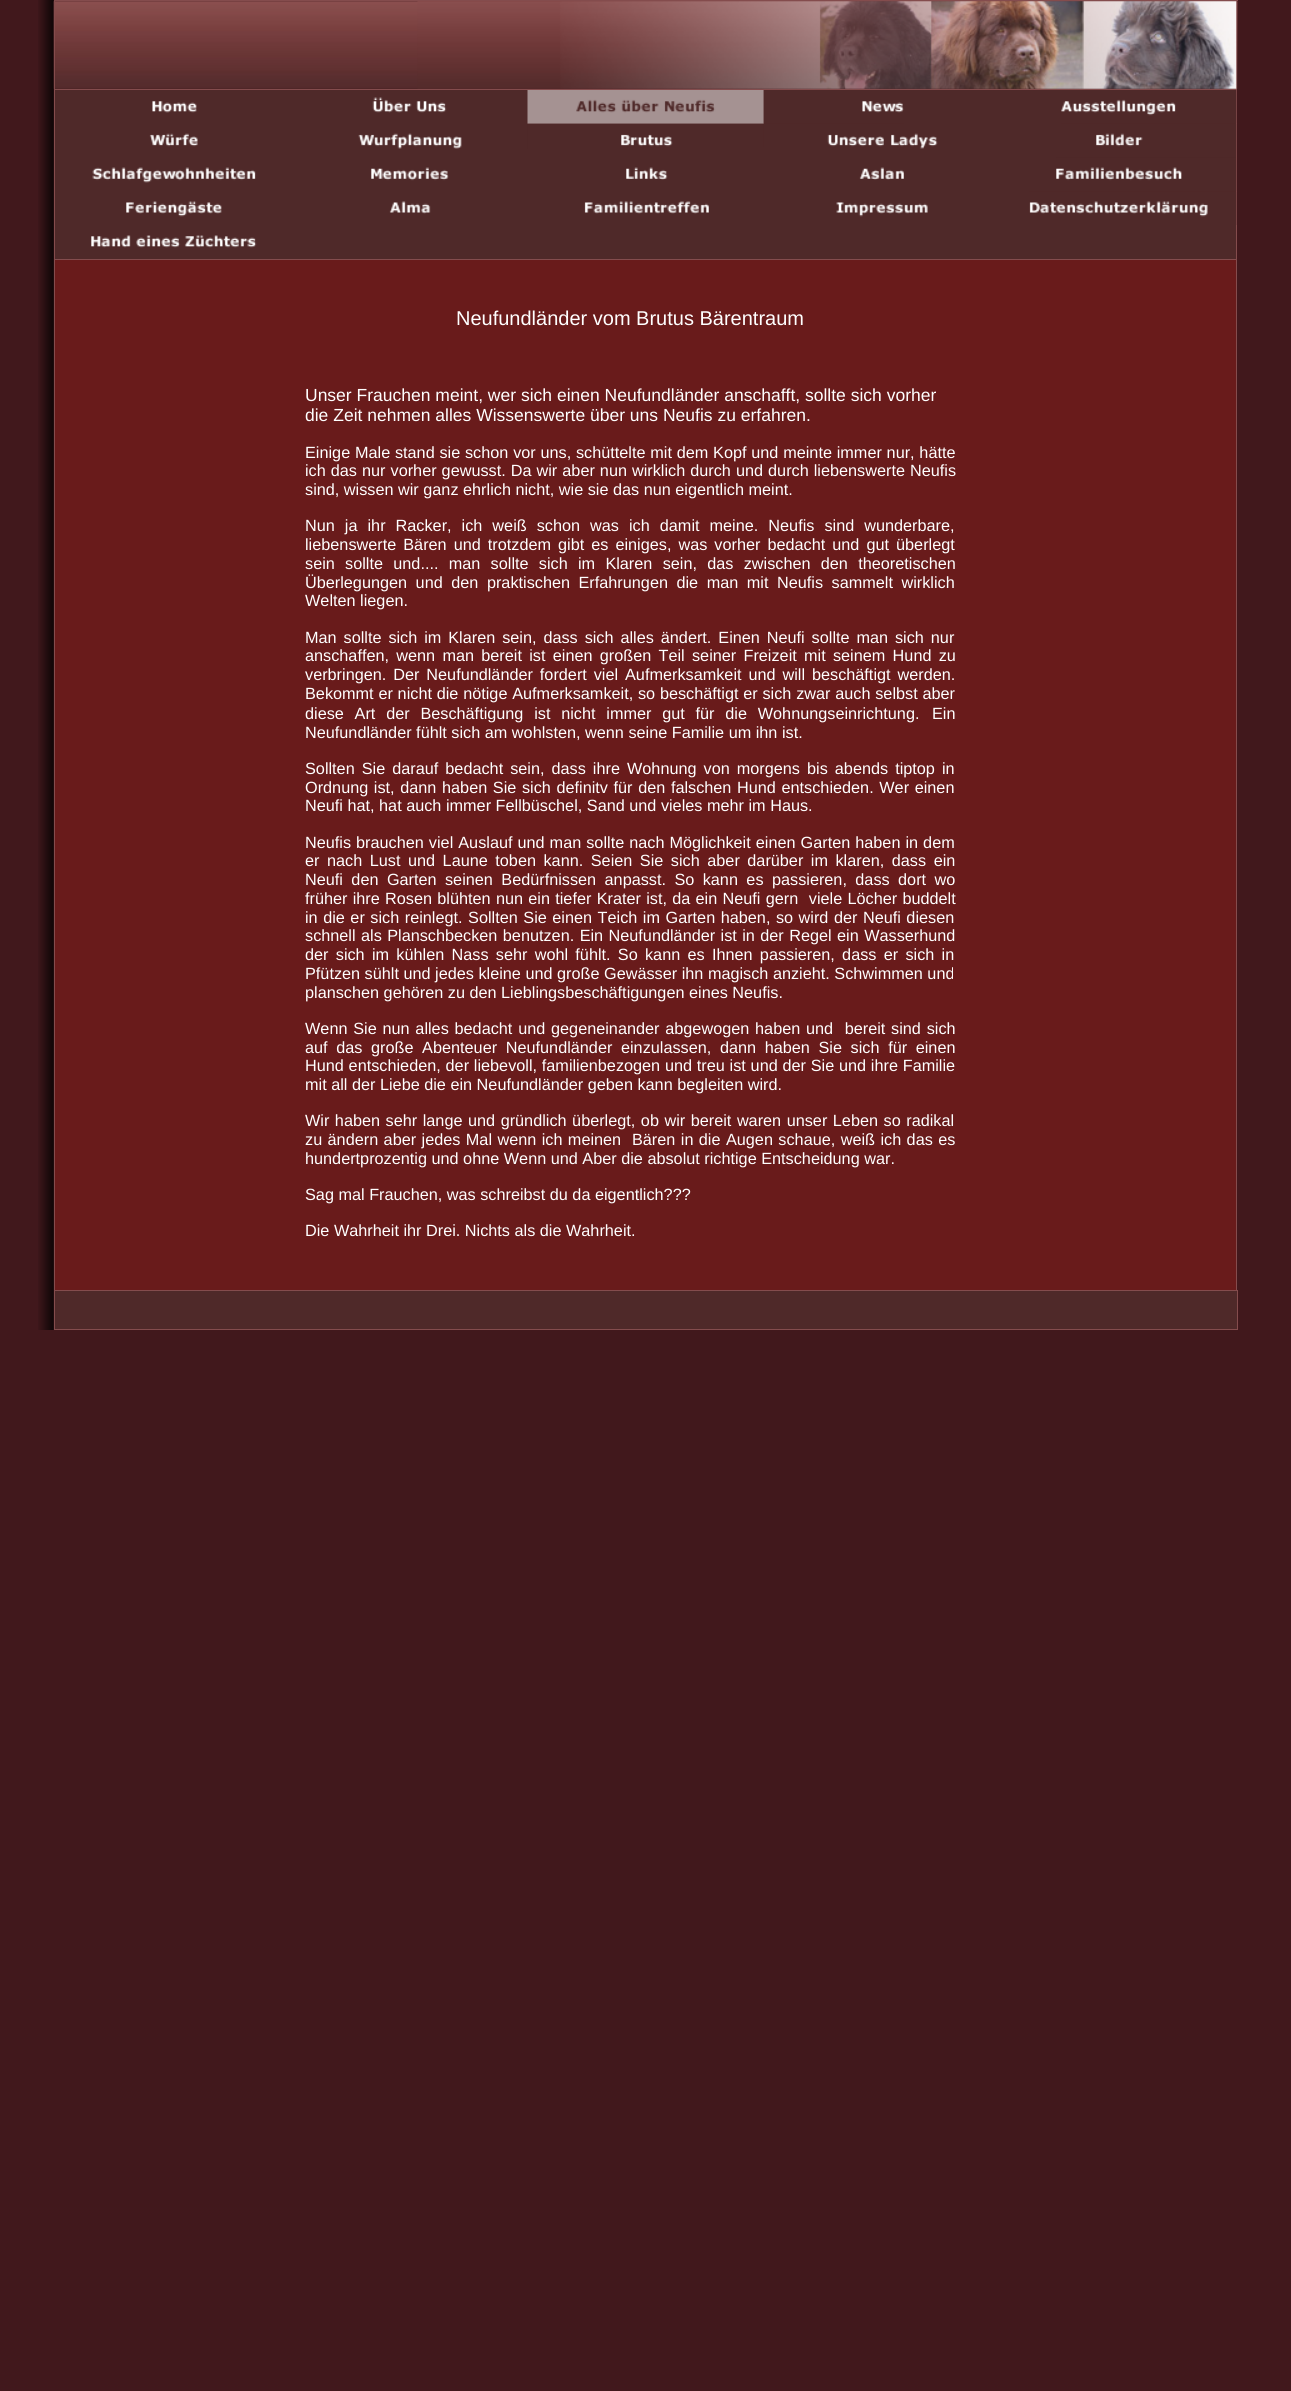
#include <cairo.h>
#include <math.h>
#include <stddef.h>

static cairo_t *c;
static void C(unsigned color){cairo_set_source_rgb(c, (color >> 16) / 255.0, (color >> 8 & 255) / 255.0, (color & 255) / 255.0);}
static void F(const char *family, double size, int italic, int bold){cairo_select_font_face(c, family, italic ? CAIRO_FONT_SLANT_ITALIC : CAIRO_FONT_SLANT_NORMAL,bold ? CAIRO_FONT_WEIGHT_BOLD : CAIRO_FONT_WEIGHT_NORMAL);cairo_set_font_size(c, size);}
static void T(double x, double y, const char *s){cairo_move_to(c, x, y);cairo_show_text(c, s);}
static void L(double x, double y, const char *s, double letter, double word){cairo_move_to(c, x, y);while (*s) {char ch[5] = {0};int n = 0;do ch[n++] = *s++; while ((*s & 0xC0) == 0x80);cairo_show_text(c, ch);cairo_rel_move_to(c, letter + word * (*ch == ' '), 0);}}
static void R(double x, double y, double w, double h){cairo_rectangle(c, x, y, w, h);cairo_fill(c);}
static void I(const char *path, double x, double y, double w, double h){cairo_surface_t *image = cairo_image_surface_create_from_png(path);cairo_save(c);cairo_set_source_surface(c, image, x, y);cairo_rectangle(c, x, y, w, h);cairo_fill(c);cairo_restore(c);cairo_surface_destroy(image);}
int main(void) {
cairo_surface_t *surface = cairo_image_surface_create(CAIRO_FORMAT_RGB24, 1291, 2391);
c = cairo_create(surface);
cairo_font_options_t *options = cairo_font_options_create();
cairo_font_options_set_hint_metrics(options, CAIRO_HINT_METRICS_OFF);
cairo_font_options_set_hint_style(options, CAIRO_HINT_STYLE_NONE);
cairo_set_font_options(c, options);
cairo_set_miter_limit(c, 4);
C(0x41181c);
cairo_paint(c);
I("1.png",38,0,16,1330);
I("2.png",53,1,1185,88);
C(0x844c4d);
R(54,0,1184,1);
R(1236,0,1,1290);
R(54,0,1,1290);
I("3.png",417,1,820,88);
C(0x4f2929);
R(55,90,1181,169);
C(0x844c4d);
R(55,89,1181,1);
R(55,259,1181,1);
I("4.png",152,101,45,12);
I("5.png",372,97,75,16);
I("6.png",527,90,237,34);
I("7.png",763,90,141,34);
I("8.png",1061,90,176,34);
I("9.png",149,133,49,14);
I("10.png",358,123,170,26);
I("11.png",527,123,237,24);
I("12.png",827,133,111,16);
I("13.png",1096,124,141,34);
I("14.png",92,167,164,16);
I("15.png",371,167,78,14);
I("16.png",626,167,42,13);
I("17.png",859,167,45,13);
I("18.png",1056,157,181,34);
I("19.png",126,201,96,16);
I("20.png",389,201,42,13);
I("21.png",584,201,125,13);
I("22.png",836,202,92,15);
I("23.png",1029,191,208,34);
I("24.png",91,235,166,13);
C(0x691b1b);
R(55,260,1181,1030);
F("Liberation Sans",20,0,0);
C(0xffffff);
T(456,325,"Neufundländer vom Brutus Bärentraum");
F("Liberation Sans",17.5,0,0);
T(305,401,"Unser Frauchen meint, wer sich einen Neufundländer anschafft, sollte sich vorher");
T(305,421,"die Zeit nehmen alles Wissenswerte über uns Neufis zu erfahren.");
F("Liberation Sans",16.25,0,0);
L(305,458,"Einige Male stand sie schon vor uns, schüttelte mit dem Kopf und meinte immer nur, hätte",0,.25);
L(305,476,"ich das nur vorher gewusst. Da wir aber nun wirklich durch und durch liebenswerte Neufis",0,.5);
T(305,495,"sind, wissen wir ganz ehrlich nicht, wie sie das nun eigentlich meint.");
L(305,531,"Nun ja ihr Racker, ich weiß schon was ich damit meine. Neufis sind wunderbare,",0,5.5);
L(305,550,"liebenswerte Bären und trotzdem gibt es einiges, was vorher bedacht und gut überlegt",0,2.5);
L(305,569,"sein sollte und.... man sollte sich im Klaren sein, das zwischen den theoretischen",0,5.75);
L(305,588,"Überlegungen und den praktischen Erfahrungen die man mit Neufis sammelt wirklich",0,4);
T(305,606,"Welten liegen.");
L(305,643,"Man sollte sich im Klaren sein, dass sich alles ändert. Einen Neufi sollte man sich nur",0,2.4);
L(305,661,"anschaffen, wenn man bereit ist einen großen Teil seiner Freizeit mit seinem Hund zu",0,2.75);
L(305,680,"verbringen. Der Neufundländer fordert viel Aufmerksamkeit und will beschäftigt werden.",0,2.4);
L(305,699,"Bekommt er nicht die nötige Aufmerksamkeit, so beschäftigt er sich zwar auch selbst aber",0,.25);
L(305,719,"diese Art der Beschäftigung ist nicht immer gut für die Wohnungseinrichtung.",0,6.25);
T(932,719,"Ein");
T(305,738,"Neufundländer fühlt sich am wohlsten, wenn seine Familie um ihn ist.");
L(305,774,"Sollten Sie darauf bedacht sein, dass ihre Wohnung von morgens bis abends tiptop in",0,2.5);
L(305,793,"Ordnung ist, dann haben Sie sich definitv für den falschen Hund entschieden. Wer einen",0,1.1);
T(305,811,"Neufi hat, hat auch immer Fellbüschel, Sand und vieles mehr im Haus.");
L(305,848,"Neufis brauchen viel Auslauf und man sollte nach Möglichkeit einen Garten haben in dem",0,.5);
L(305,866,"er nach Lust und Laune toben kann. Seien Sie sich aber darüber im klaren, dass ein",0,3);
L(305,885,"Neufi den Garten seinen Bedürfnissen anpasst. So kann es passieren, dass dort wo",0,3.9);
L(305,904,"früher ihre Rosen blühten nun ein tiefer Krater ist, da ein Neufi gern  viele Löcher buddelt",0,.75);
L(305,923,"in die er sich reinlegt. Sollten Sie einen Teich im Garten haben, so wird der Neufi diesen",0,1);
L(305,941,"schnell als Planschbecken benutzen. Ein Neufundländer ist in der Regel ein Wasserhund",0,.9);
L(305,960,"der sich im kühlen Nass sehr wohl fühlt. So kann es Ihnen passieren, dass er sich in",0,2.75);
T(305,979,"Pfützen sühlt und jedes kleine und große Gewässer ihn magisch anzieht. Schwimmen und");
T(305,998,"planschen gehören zu den Lieblingsbeschäftigungen eines Neufis.");
L(305,1034,"Wenn Sie nun alles bedacht und gegeneinander abgewogen haben und  bereit sind sich",0,1.25);
L(305,1053,"auf das große Abenteuer Neufundländer einzulassen, dann haben Sie sich für einen",0,4.1);
L(305,1071,"Hund entschieden, der liebevoll, familienbezogen und treu ist und der Sie und ihre Familie",0,.25);
T(305,1090,"mit all der Liebe die ein Neufundländer geben kann begleiten wird.");
L(305,1126,"Wir haben sehr lange und gründlich überlegt, ob wir bereit waren unser Leben so radikal",0,1);
L(305,1145,"zu ändern aber jedes Mal wenn ich meinen  Bären in die Augen schaue, weiß ich das es",0,.9);
T(305,1164,"hundertprozentig und ohne Wenn und Aber die absolut richtige Entscheidung war.");
T(305,1200,"Sag mal Frauchen, was schreibst du da eigentlich?\077?");
T(305,1236,"Die Wahrheit ihr Drei. Nichts als die Wahrheit.");
C(0x4f2929);
cairo_rectangle(c,54.5,1290.5,1183,39);
cairo_fill_preserve(c);
C(0x844c4d);
cairo_set_line_width(c,1);
cairo_stroke(c);
cairo_surface_write_to_png(surface, "o.png");
cairo_font_options_destroy(options);
cairo_destroy(c);
cairo_surface_destroy(surface);
return 0;
}
